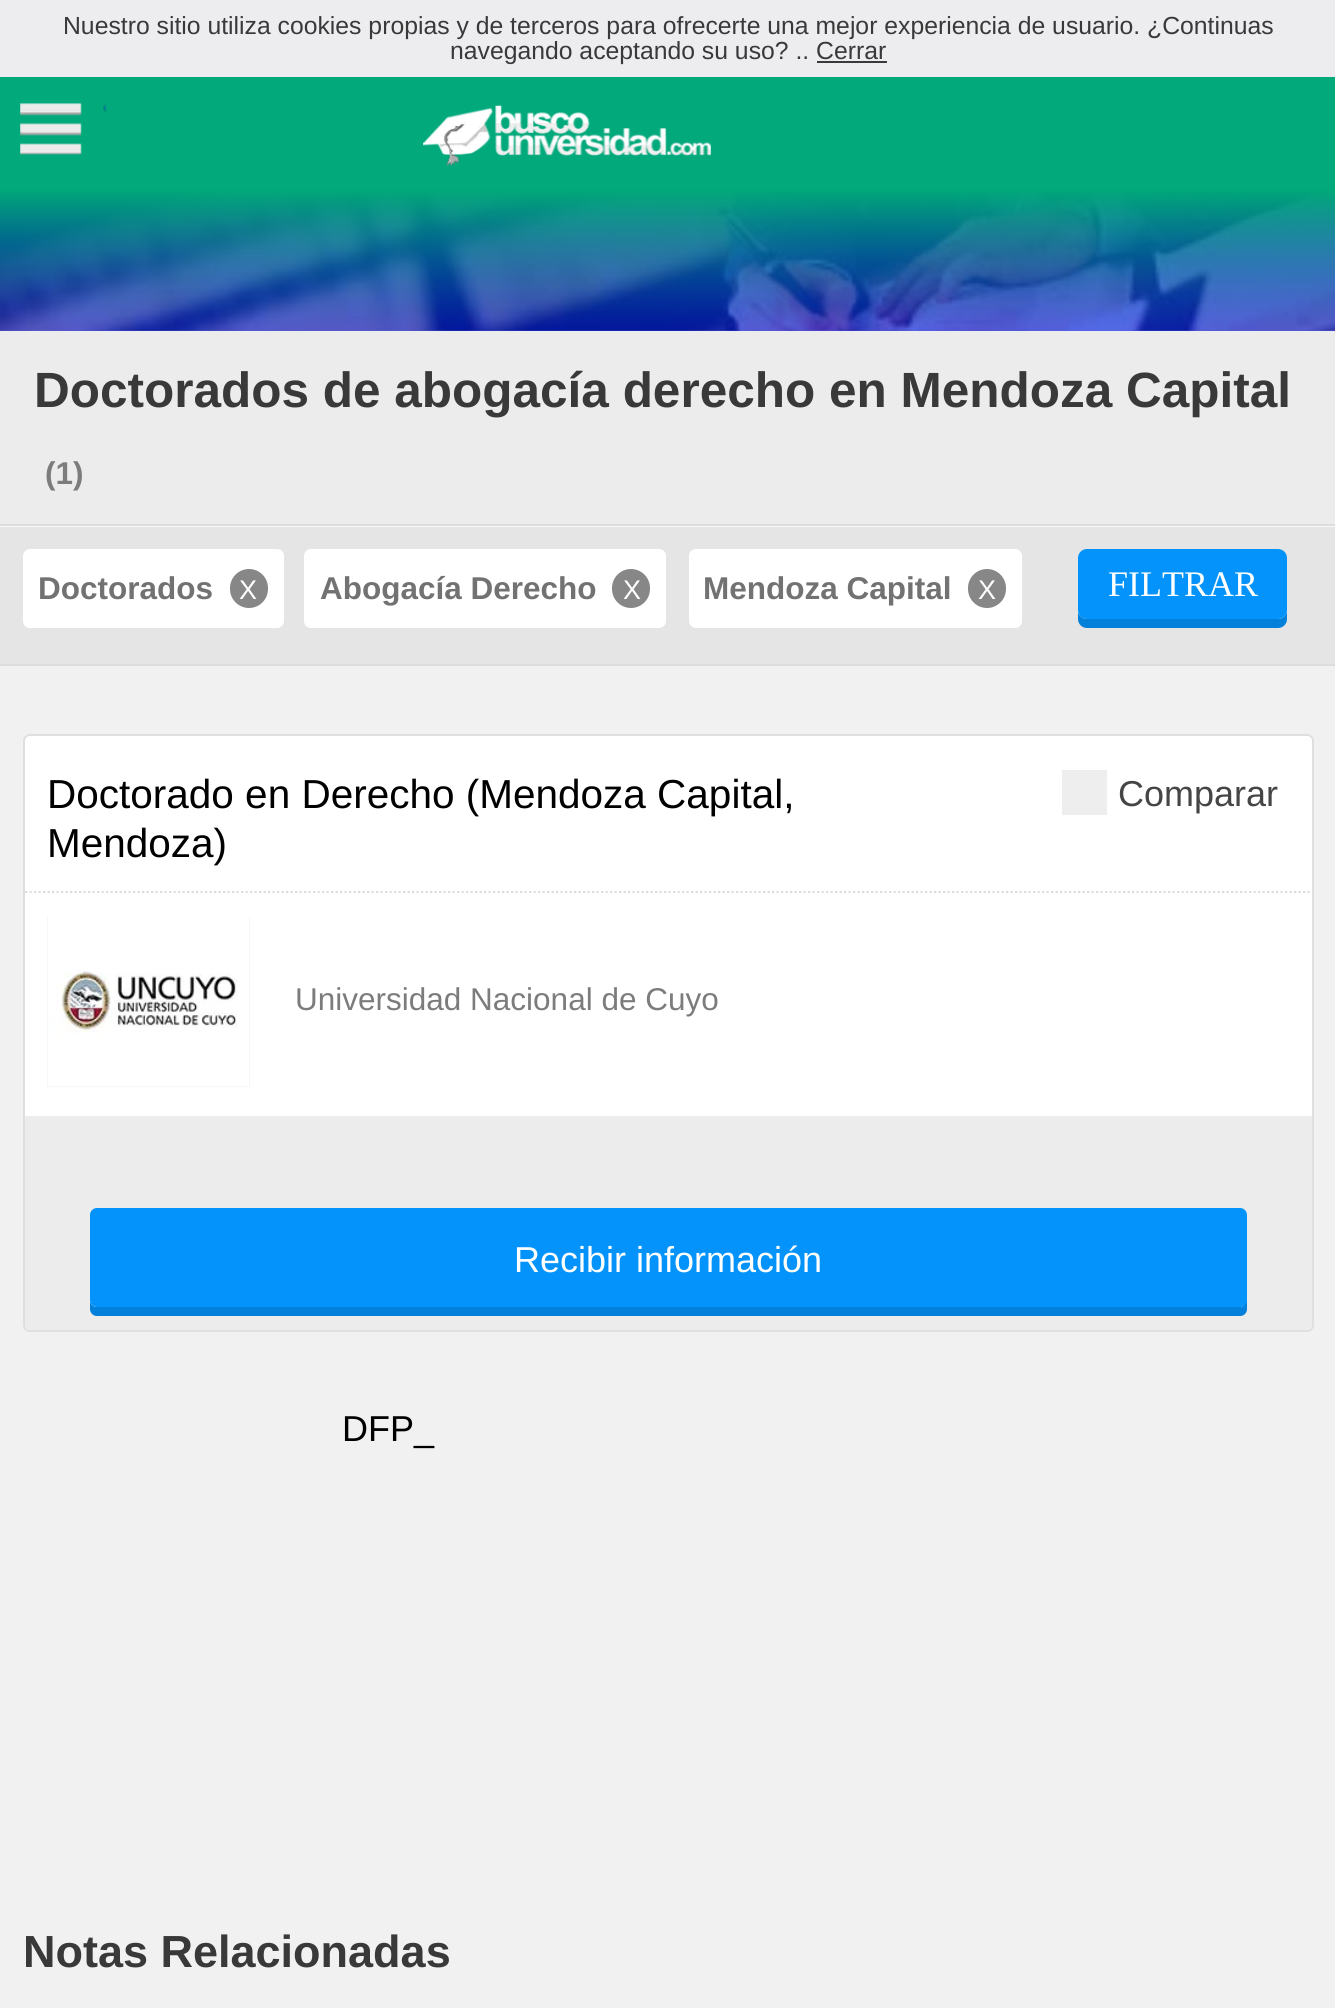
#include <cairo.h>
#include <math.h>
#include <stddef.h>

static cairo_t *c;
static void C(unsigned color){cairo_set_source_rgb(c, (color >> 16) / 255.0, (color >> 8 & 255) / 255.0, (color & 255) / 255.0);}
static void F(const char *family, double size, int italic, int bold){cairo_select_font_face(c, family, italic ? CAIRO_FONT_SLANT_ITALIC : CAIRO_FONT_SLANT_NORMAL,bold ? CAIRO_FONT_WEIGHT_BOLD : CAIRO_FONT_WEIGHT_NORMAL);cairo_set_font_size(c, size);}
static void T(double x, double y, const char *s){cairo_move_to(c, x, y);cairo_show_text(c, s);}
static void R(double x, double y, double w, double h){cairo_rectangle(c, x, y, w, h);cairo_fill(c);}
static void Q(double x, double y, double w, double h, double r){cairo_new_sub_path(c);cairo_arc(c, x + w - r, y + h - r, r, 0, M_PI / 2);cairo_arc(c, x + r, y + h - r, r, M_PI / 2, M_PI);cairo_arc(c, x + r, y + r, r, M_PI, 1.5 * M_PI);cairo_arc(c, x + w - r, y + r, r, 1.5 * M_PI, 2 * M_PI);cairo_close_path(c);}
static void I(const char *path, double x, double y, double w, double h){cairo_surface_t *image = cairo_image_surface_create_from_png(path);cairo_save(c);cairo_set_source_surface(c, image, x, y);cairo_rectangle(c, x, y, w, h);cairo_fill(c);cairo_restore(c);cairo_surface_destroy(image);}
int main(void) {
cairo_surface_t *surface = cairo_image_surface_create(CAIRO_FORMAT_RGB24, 1335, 2008);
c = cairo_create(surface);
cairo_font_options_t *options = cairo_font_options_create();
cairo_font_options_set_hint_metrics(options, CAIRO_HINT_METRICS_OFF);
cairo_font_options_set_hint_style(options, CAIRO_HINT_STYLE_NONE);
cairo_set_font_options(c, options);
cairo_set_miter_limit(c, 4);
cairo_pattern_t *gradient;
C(0xf9f9f9);
cairo_paint(c);
C(0xedecef);
R(0,0,1335,77);
F("Liberation Sans",24.75,0,0);
C(0x393939);
T(63,34,"Nuestro sitio utiliza cookies propias y de terceros para ofrecerte una mejor experiencia de usuario. ¿Continuas");
T(450,59,"navegando aceptando su uso? .. Cerrar");
R(817,61,70,2);
C(0x01a97b);
R(0,77,1335,112);
I("1.png",20,103,87,52);
I("2.png",423,105,288,62);
C(0xececec);
R(0,330,1335,194);
I("3.png",0,192,1335,139);
gradient = cairo_pattern_create_linear(668,189,668,365);
cairo_pattern_add_color_stop_rgba(gradient,0,0.004,0.663,0.471,1);
cairo_pattern_add_color_stop_rgba(gradient,1,0.02,0,1,.6);
cairo_set_source(c,gradient);
cairo_pattern_destroy(gradient);
R(0,189,1335,142);
F("Liberation Sans",49.5,0,1);
C(0x393939);
T(34,407,"Doctorados de abogacía derecho en Mendoza Capital");
F("Liberation Sans",31.5,0,1);
C(0x7c7c7c);
T(45,484,"(1)");
C(0xdddddd);
R(0,524,1335,2);
C(0xe5e5e5);
R(0,527,1335,137);
C(0xdddddd);
R(0,664,1335,2);
C(0xffffff);
Q(23,549,261,79,7);
cairo_fill(c);
C(0x737272);
T(38,599,"Doctorados");
C(0x878787);
Q(230,569,38,39,19);
cairo_fill(c);
F("Liberation Sans",27,0,0);
C(0xffffff);
T(239,599,"X");
Q(304,549,362,79,7);
cairo_fill(c);
F("Liberation Sans",31.5,0,1);
C(0x737272);
T(320,599,"Abogacía Derecho");
C(0x878787);
Q(612,569,38,39,19);
cairo_fill(c);
F("Liberation Sans",27,0,0);
C(0xffffff);
T(623,599,"X");
Q(689,549,333,79,7);
cairo_fill(c);
F("Liberation Sans",31.5,0,1);
C(0x737272);
T(703,599,"Mendoza Capital");
C(0x878787);
Q(968,569,38,39,19);
cairo_fill(c);
F("Liberation Sans",27,0,0);
C(0xffffff);
T(978,599,"X");
C(0x0280da);
cairo_new_path(c);
cairo_move_to(c,1078,612);
cairo_line_to(c,1078,619);
cairo_curve_to(c,1078,624,1082,628,1087,628);
cairo_line_to(c,1278,628);
cairo_curve_to(c,1283,628,1287,624,1287,619);
cairo_line_to(c,1287,610);
cairo_curve_to(c,1287,615,1283,619,1278,619);
cairo_line_to(c,1087,619);
cairo_curve_to(c,1083,619,1079,616,1078,612);
cairo_close_path(c);
cairo_fill(c);
C(0x0393fa);
Q(1078,549,209,70,9);
cairo_fill(c);
F("Liberation Serif",36,0,0);
C(0xffffff);
T(1108,596,"FILTRAR");
C(0xf1f1f1);
R(0,666,1335,1342);
C(0xffffff);
Q(24,735,1289,596,6);
cairo_fill_preserve(c);
C(0xdfdfdf);
cairo_stroke(c);
F("Liberation Sans",40.5,0,0);
C(0x000000);
T(47,808,"Doctorado en Derecho (Mendoza Capital,");
T(47,857,"Mendoza)");
cairo_new_path(c);
cairo_move_to(c,25,892);
cairo_line_to(c,1312,892);
C(0xdddddd);
cairo_set_line_width(c,2.2);
cairo_set_dash(c,(double[]){2.25,2.25},2,0);
cairo_stroke(c);
C(0xeeeeee);
R(1062,770,45,45);
F("Liberation Sans",36,0,0);
C(0x454545);
T(1118,806,"Comparar");
C(0xdddddd);
R(47,916,203,171);
I("4.png",47,916,203,171);
F("Liberation Sans",31.5,0,0);
C(0x7c7c7c);
T(295,1010,"Universidad Nacional de Cuyo");
C(0xececec);
cairo_new_path(c);
cairo_move_to(c,25,1116);
cairo_line_to(c,1312,1116);
cairo_line_to(c,1312,1325);
cairo_curve_to(c,1312,1328,1310,1330,1307,1330);
cairo_line_to(c,30,1330);
cairo_curve_to(c,27,1330,25,1328,25,1325);
cairo_close_path(c);
cairo_fill(c);
C(0x0280da);
cairo_new_path(c);
cairo_move_to(c,90,1300);
cairo_line_to(c,90,1309);
cairo_curve_to(c,90,1313,93,1316,97,1316);
cairo_line_to(c,1240,1316);
cairo_curve_to(c,1244,1316,1247,1313,1247,1309);
cairo_line_to(c,1247,1224);
cairo_line_to(c,1246,1221);
cairo_line_to(c,1246,1300);
cairo_curve_to(c,1246,1304,1243,1307,1240,1307);
cairo_line_to(c,97,1307);
cairo_curve_to(c,93,1307,90,1304,90,1300);
cairo_close_path(c);
cairo_fill(c);
C(0x0393fa);
Q(90,1208,1157,99,7);
cairo_fill(c);
F("Liberation Sans",36,0,0);
C(0xffffff);
T(514,1272,"Recibir información");
C(0x000000);
T(342,1441,"DFP_");
F("Liberation Sans",45,0,1);
C(0x393939);
T(23,1967,"Notas Relacionadas");
cairo_surface_write_to_png(surface, "o.png");
cairo_font_options_destroy(options);
cairo_destroy(c);
cairo_surface_destroy(surface);
return 0;
}
